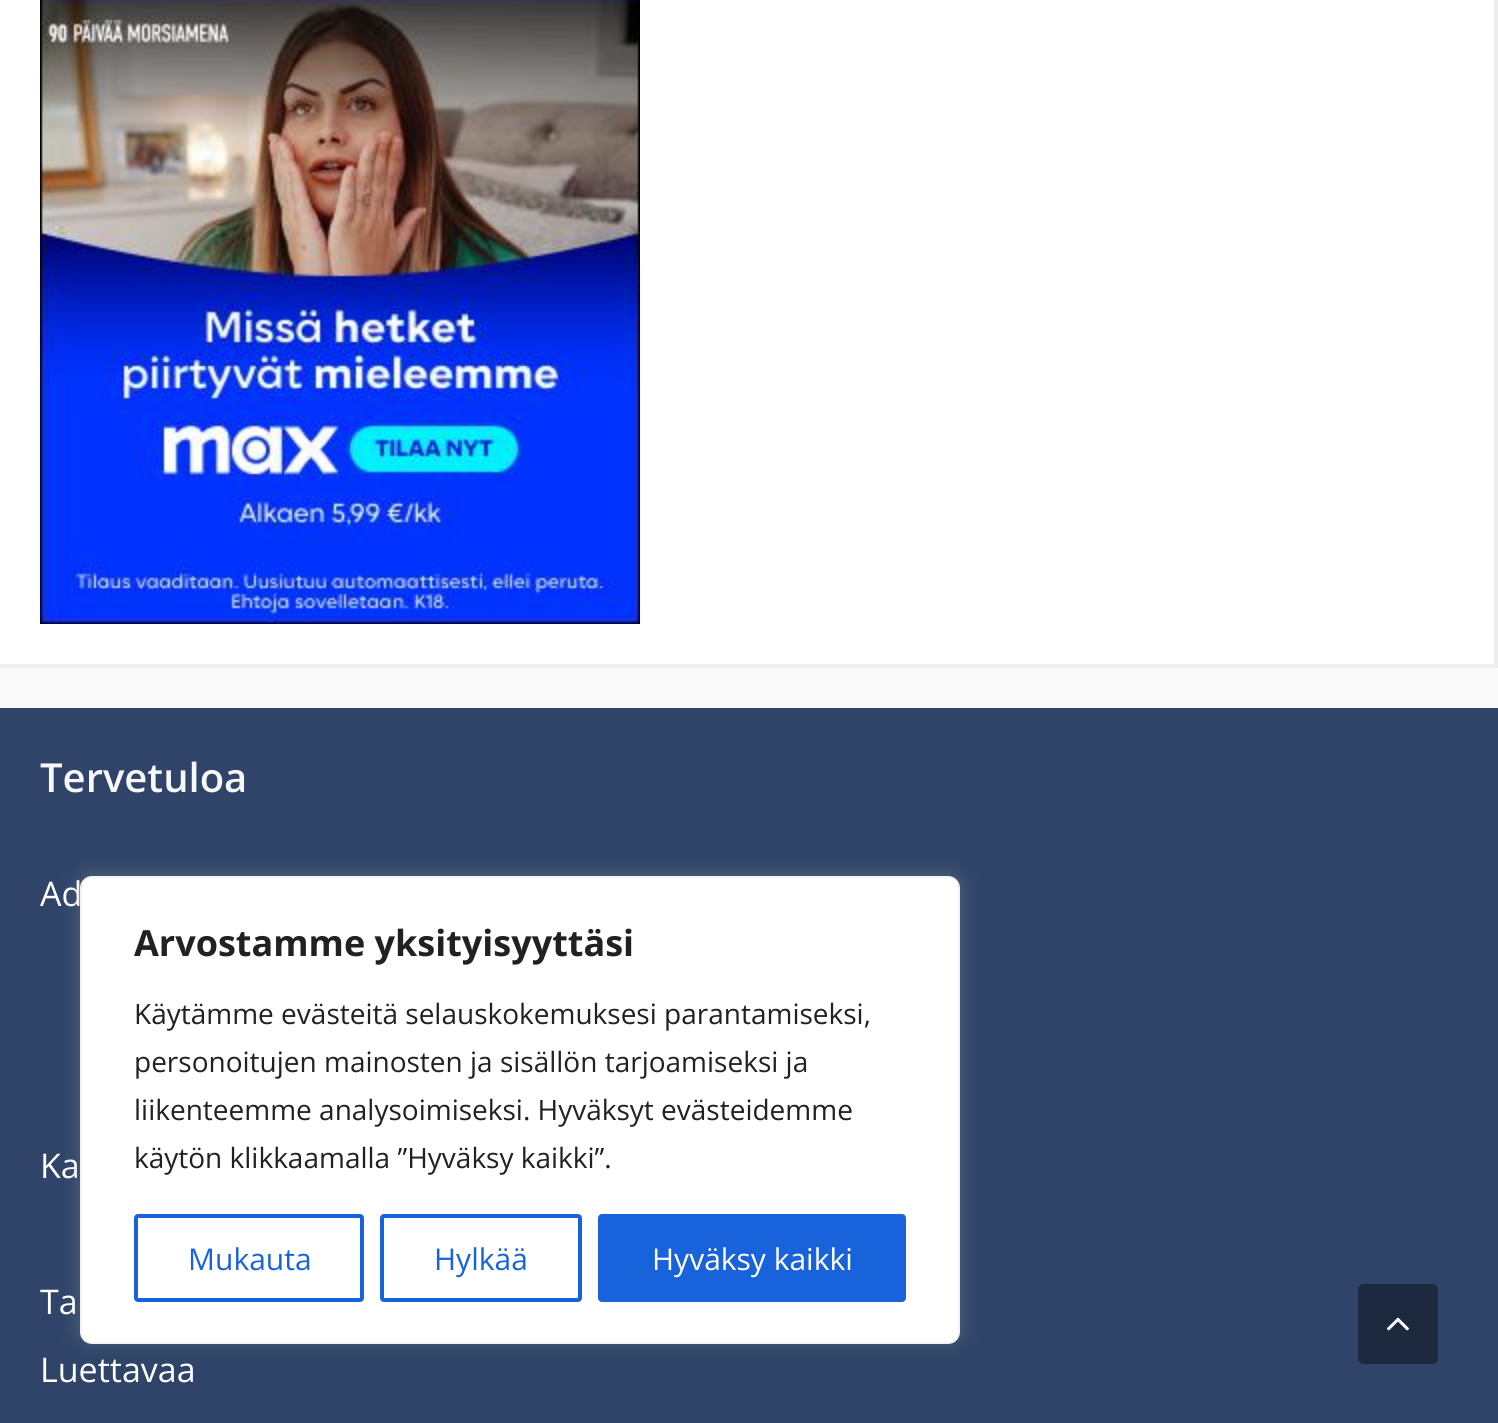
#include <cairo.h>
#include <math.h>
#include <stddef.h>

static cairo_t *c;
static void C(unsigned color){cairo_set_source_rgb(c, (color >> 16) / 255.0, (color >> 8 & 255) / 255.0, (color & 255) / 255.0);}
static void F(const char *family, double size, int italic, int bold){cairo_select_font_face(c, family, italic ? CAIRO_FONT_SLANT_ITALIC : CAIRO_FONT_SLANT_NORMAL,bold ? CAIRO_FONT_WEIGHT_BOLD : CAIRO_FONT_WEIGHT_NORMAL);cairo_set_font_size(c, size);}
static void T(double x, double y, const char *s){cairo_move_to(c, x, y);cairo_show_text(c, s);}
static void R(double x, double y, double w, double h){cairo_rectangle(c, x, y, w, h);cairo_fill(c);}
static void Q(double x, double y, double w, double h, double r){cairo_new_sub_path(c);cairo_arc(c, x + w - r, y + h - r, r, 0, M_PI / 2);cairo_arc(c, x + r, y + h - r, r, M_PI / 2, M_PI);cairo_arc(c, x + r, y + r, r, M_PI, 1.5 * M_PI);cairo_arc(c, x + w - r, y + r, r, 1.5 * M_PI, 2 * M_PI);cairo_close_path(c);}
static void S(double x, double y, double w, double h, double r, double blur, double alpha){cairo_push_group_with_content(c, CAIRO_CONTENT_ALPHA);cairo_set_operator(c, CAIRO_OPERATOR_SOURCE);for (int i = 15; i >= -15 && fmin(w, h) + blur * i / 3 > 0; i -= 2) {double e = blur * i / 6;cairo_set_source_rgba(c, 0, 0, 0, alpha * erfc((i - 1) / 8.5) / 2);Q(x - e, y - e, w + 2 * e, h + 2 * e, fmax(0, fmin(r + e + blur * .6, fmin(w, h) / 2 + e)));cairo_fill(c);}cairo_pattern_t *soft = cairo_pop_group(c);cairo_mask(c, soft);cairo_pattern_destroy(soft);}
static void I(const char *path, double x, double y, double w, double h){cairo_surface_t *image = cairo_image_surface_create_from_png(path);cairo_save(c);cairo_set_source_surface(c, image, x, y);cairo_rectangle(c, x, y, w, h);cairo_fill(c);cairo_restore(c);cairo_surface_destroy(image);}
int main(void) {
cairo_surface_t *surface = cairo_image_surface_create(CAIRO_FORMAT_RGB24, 1498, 1423);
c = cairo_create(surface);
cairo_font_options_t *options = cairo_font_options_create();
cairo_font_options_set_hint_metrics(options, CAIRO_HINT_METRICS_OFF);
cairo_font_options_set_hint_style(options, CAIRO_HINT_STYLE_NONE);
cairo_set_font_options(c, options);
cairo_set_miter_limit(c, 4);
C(0xfafafa);
cairo_paint(c);
C(0xffffff);
R(0,0,1498,668);
C(0xededed);
cairo_new_path(c);
cairo_move_to(c,1498,-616);
cairo_line_to(c,1498,668);
cairo_line_to(c,1494,664);
cairo_line_to(c,1494,-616);
cairo_close_path(c);
cairo_fill(c);
cairo_set_source_rgba(c,0,0,0,0.07);
cairo_new_path(c);
cairo_move_to(c,1498,668);
cairo_line_to(c,0,668);
cairo_line_to(c,0,664);
cairo_line_to(c,1494,664);
cairo_close_path(c);
cairo_fill(c);
I("1.png",40,0,600,624);
C(0x2f4468);
R(0,708,1498,715);
F("Open Sans SemiBold",40,0,0);
C(0xf7f8f9);
T(40,792,"Tervetuloa");
F("Open Sans",34,0,0);
C(0xffffff);
T(40,906,"Ad");
T(40,1178,"Ka");
T(40,1314,"Ta");
T(40,1382,"Luettavaa");
C(0xacabab);
S(80,874,880,468,12,10,.3);
C(0xffffff);
Q(81,877,878,466,11);
cairo_fill_preserve(c);
C(0xf4f4f4);
cairo_stroke(c);
F("Open Sans",36,0,1);
C(0x212121);
T(134,956,"Arvostamme yksityisyyttäsi");
F("Open Sans",28,0,0);
T(134,1024,"Käytämme evästeitä selauskokemuksesi parantamiseksi,");
T(134,1072,"personoitujen mainosten ja sisällön tarjoamiseksi ja");
T(134,1120,"liikenteemme analysoimiseksi. Hyväksyt evästeidemme");
T(134,1168,"käytön klikkaamalla ”Hyväksy kaikki”.");
Q(136,1216,226,84,2);
C(0x1863dc);
cairo_set_line_width(c,4);
cairo_stroke(c);
F("Open Sans",30,0,0);
T(188,1270,"Mukauta");
Q(382,1216,198,84,2);
cairo_stroke(c);
T(434,1270,"Hylkää");
Q(600,1216,304,84,2);
cairo_fill_preserve(c);
cairo_stroke(c);
C(0xffffff);
T(652,1270,"Hyväksy kaikki");
C(0x1c293e);
Q(1358,1284,80,80,6);
cairo_fill(c);
I("2.png",1387,1317,22,14);
cairo_surface_write_to_png(surface, "o.png");
cairo_font_options_destroy(options);
cairo_destroy(c);
cairo_surface_destroy(surface);
return 0;
}
